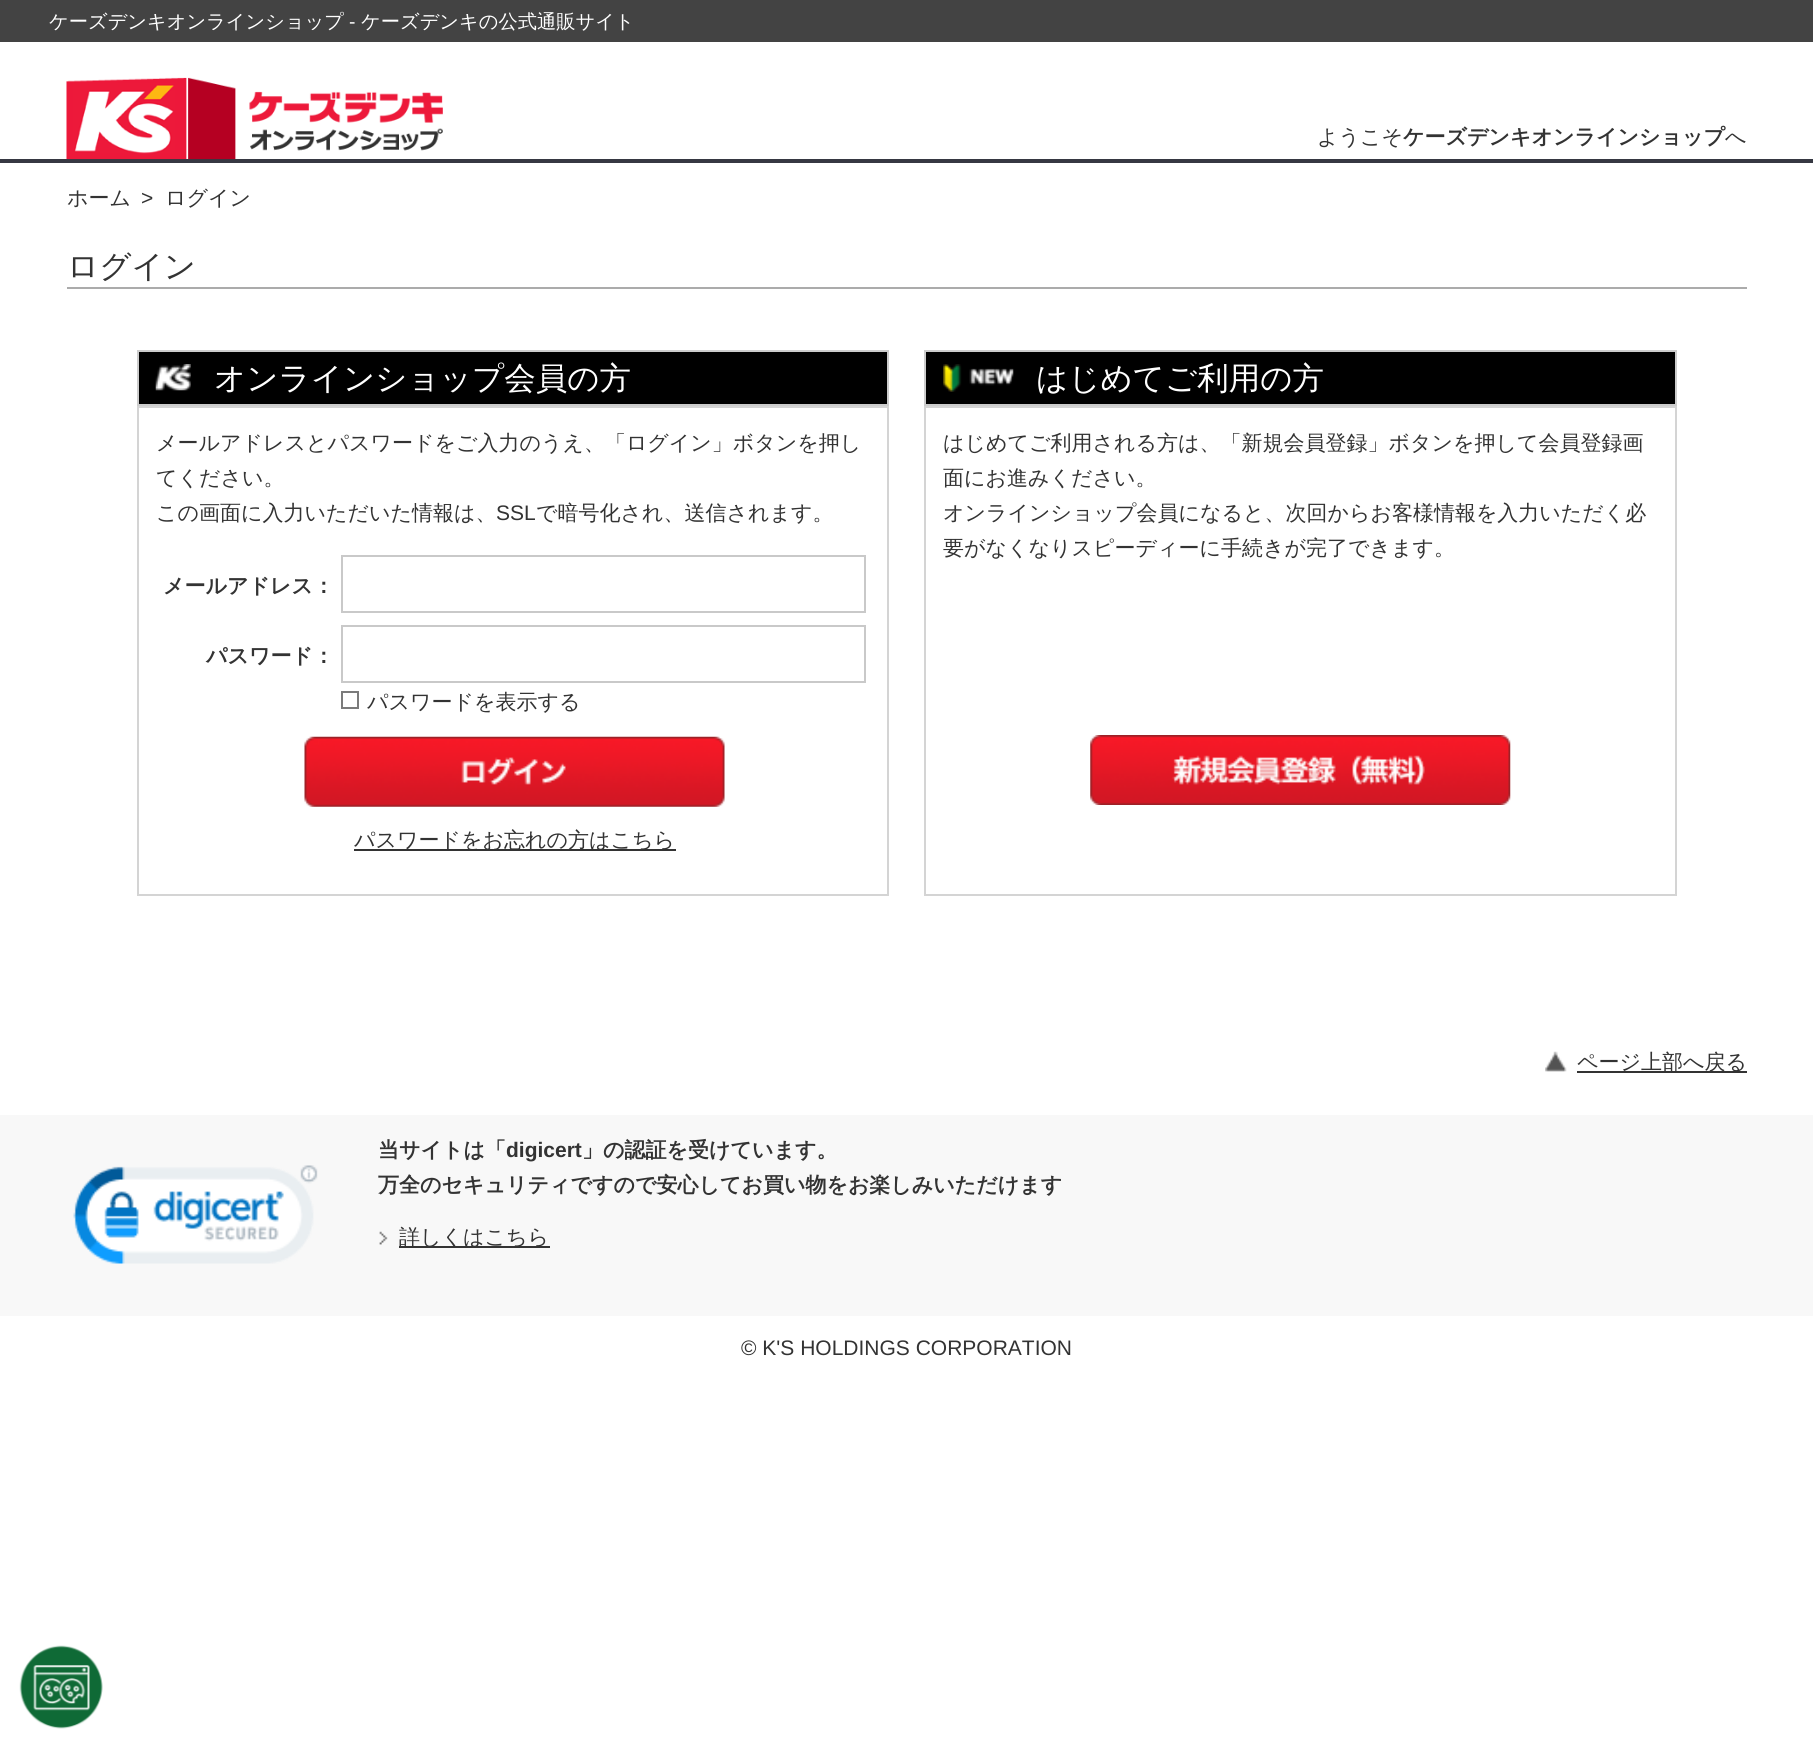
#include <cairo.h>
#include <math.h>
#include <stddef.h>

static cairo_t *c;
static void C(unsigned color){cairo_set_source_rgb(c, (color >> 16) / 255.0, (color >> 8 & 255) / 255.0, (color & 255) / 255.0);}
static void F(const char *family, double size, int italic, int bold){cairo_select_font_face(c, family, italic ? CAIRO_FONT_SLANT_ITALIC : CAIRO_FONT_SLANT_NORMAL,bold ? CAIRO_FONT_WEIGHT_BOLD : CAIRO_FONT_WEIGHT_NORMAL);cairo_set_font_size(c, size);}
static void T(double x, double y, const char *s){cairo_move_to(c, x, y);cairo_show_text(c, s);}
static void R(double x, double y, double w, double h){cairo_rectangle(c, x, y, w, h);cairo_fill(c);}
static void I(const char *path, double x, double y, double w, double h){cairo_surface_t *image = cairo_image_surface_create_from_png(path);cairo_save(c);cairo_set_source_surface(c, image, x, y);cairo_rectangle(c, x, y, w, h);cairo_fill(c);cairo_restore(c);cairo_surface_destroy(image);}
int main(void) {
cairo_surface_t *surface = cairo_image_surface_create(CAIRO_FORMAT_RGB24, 1813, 1747);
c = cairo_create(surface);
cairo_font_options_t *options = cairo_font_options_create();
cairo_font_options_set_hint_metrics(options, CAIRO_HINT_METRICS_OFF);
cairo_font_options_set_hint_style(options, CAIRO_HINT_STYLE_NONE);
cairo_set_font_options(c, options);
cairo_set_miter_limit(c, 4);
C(0xffffff);
cairo_paint(c);
C(0x363842);
R(0,159,1813,4);
C(0x434343);
R(0,0,1813,42);
F("WenQuanYi Zen Hei Medium",19.25,0,0);
C(0xffffff);
T(49,28,"ケーズデンキオンラインショップ");
F("Liberation Sans",19.25,0,0);
T(349,28,"-");
F("WenQuanYi Zen Hei Medium",19.25,0,0);
T(361,28,"ケーズデンキの公式通販サイト");
I("1.png",66,77,377,83);
F("WenQuanYi Zen Hei Medium",21,0,0);
C(0x333333);
T(1317,144,"ようこそ");
F("WenQuanYi Zen Hei",21,0,1);
T(1403,144,"ケーズデンキオンラインショップ");
F("WenQuanYi Zen Hei Medium",21,0,0);
T(1725,144,"へ");
T(67,205,"ホーム");
F("Liberation Sans",21,0,0);
T(141,205,">");
F("WenQuanYi Zen Hei Medium",21,0,0);
T(165,205,"ログイン");
C(0xababab);
R(67,287,1680,2);
F("WenQuanYi Zen Hei Medium",31.5,0,0);
C(0x333333);
T(67,277,"ログイン");
C(0x000000);
cairo_rectangle(c,138,351,750,54);
cairo_fill_preserve(c);
C(0xcccccc);
cairo_stroke(c);
I("2.png",155,364,36,27);
C(0xffffff);
T(214,389,"オンラインショップ会員の方");
cairo_rectangle(c,138,407,750,488);
C(0xd4d4d4);
cairo_stroke(c);
F("WenQuanYi Zen Hei Medium",21,0,0);
C(0x333333);
T(156,450,"メールアドレスとパスワードをご入力のうえ、「ログイン」ボタンを押し");
T(156,485,"てください。");
T(156,520,"この画面に入力いただいた情報は、");
F("Liberation Sans",21,0,0);
T(496,520,"SSL");
F("WenQuanYi Zen Hei Medium",21,0,0);
T(536,520,"で暗号化され、送信されます。");
F("WenQuanYi Zen Hei",21,0,1);
T(163,593,"メールアドレス：");
cairo_rectangle(c,342,556,523,56);
C(0xc9c9c9);
cairo_stroke(c);
C(0x333333);
T(206,663,"パスワード：");
cairo_rectangle(c,342,626,523,56);
C(0xc9c9c9);
cairo_stroke(c);
cairo_rectangle(c,342,692,16,16);
C(0x7b7b7b);
cairo_stroke(c);
F("WenQuanYi Zen Hei Medium",21,0,0);
C(0x333333);
T(367,709,"パスワードを表示する");
I("3.png",304,736,421,71);
R(354,849,322,2);
T(354,847,"パスワードをお忘れの方はこちら");
C(0x000000);
cairo_rectangle(c,925,351,751,54);
cairo_fill_preserve(c);
C(0xcccccc);
cairo_stroke(c);
I("4.png",943,364,71,28);
F("WenQuanYi Zen Hei Medium",31.5,0,0);
C(0xffffff);
T(1036,389,"はじめてご利用の方");
cairo_rectangle(c,925,407,751,488);
C(0xd4d4d4);
cairo_stroke(c);
F("WenQuanYi Zen Hei Medium",21,0,0);
C(0x333333);
T(943,450,"はじめてご利用される方は、「新規会員登録」ボタンを押して会員登録画");
T(943,485,"面にお進みください。");
T(943,520,"オンラインショップ会員になると、次回からお客様情報を入力いただく必");
T(943,555,"要がなくなりスピーディーに手続きが完了できます。");
I("5.png",1090,735,421,70);
I("6.png",1545,1051,22,21);
R(1577,1071,170,2);
T(1577,1069,"ページ上部へ戻る");
C(0xf8f8f8);
R(0,1115,1813,201);
I("7.png",73,1165,245,99);
F("WenQuanYi Zen Hei",21,0,1);
C(0x333333);
T(378,1157,"当サイトは「");
F("Liberation Sans",21,0,1);
T(506,1157,"digicert");
F("WenQuanYi Zen Hei",21,0,1);
T(582,1157,"」の認証を受けています。");
T(378,1192,"万全のセキュリティですので安心してお買い物をお楽しみいただけます");
I("8.png",379,1231,9,14);
R(399,1246,151,2);
F("WenQuanYi Zen Hei Medium",21,0,0);
T(399,1244,"詳しくはこちら");
F("Liberation Sans",21,0,0);
T(741,1355,"© K'S HOLDINGS CORPORATION");
I("9.png",19,1645,84,84);
cairo_surface_write_to_png(surface, "o.png");
cairo_font_options_destroy(options);
cairo_destroy(c);
cairo_surface_destroy(surface);
return 0;
}
